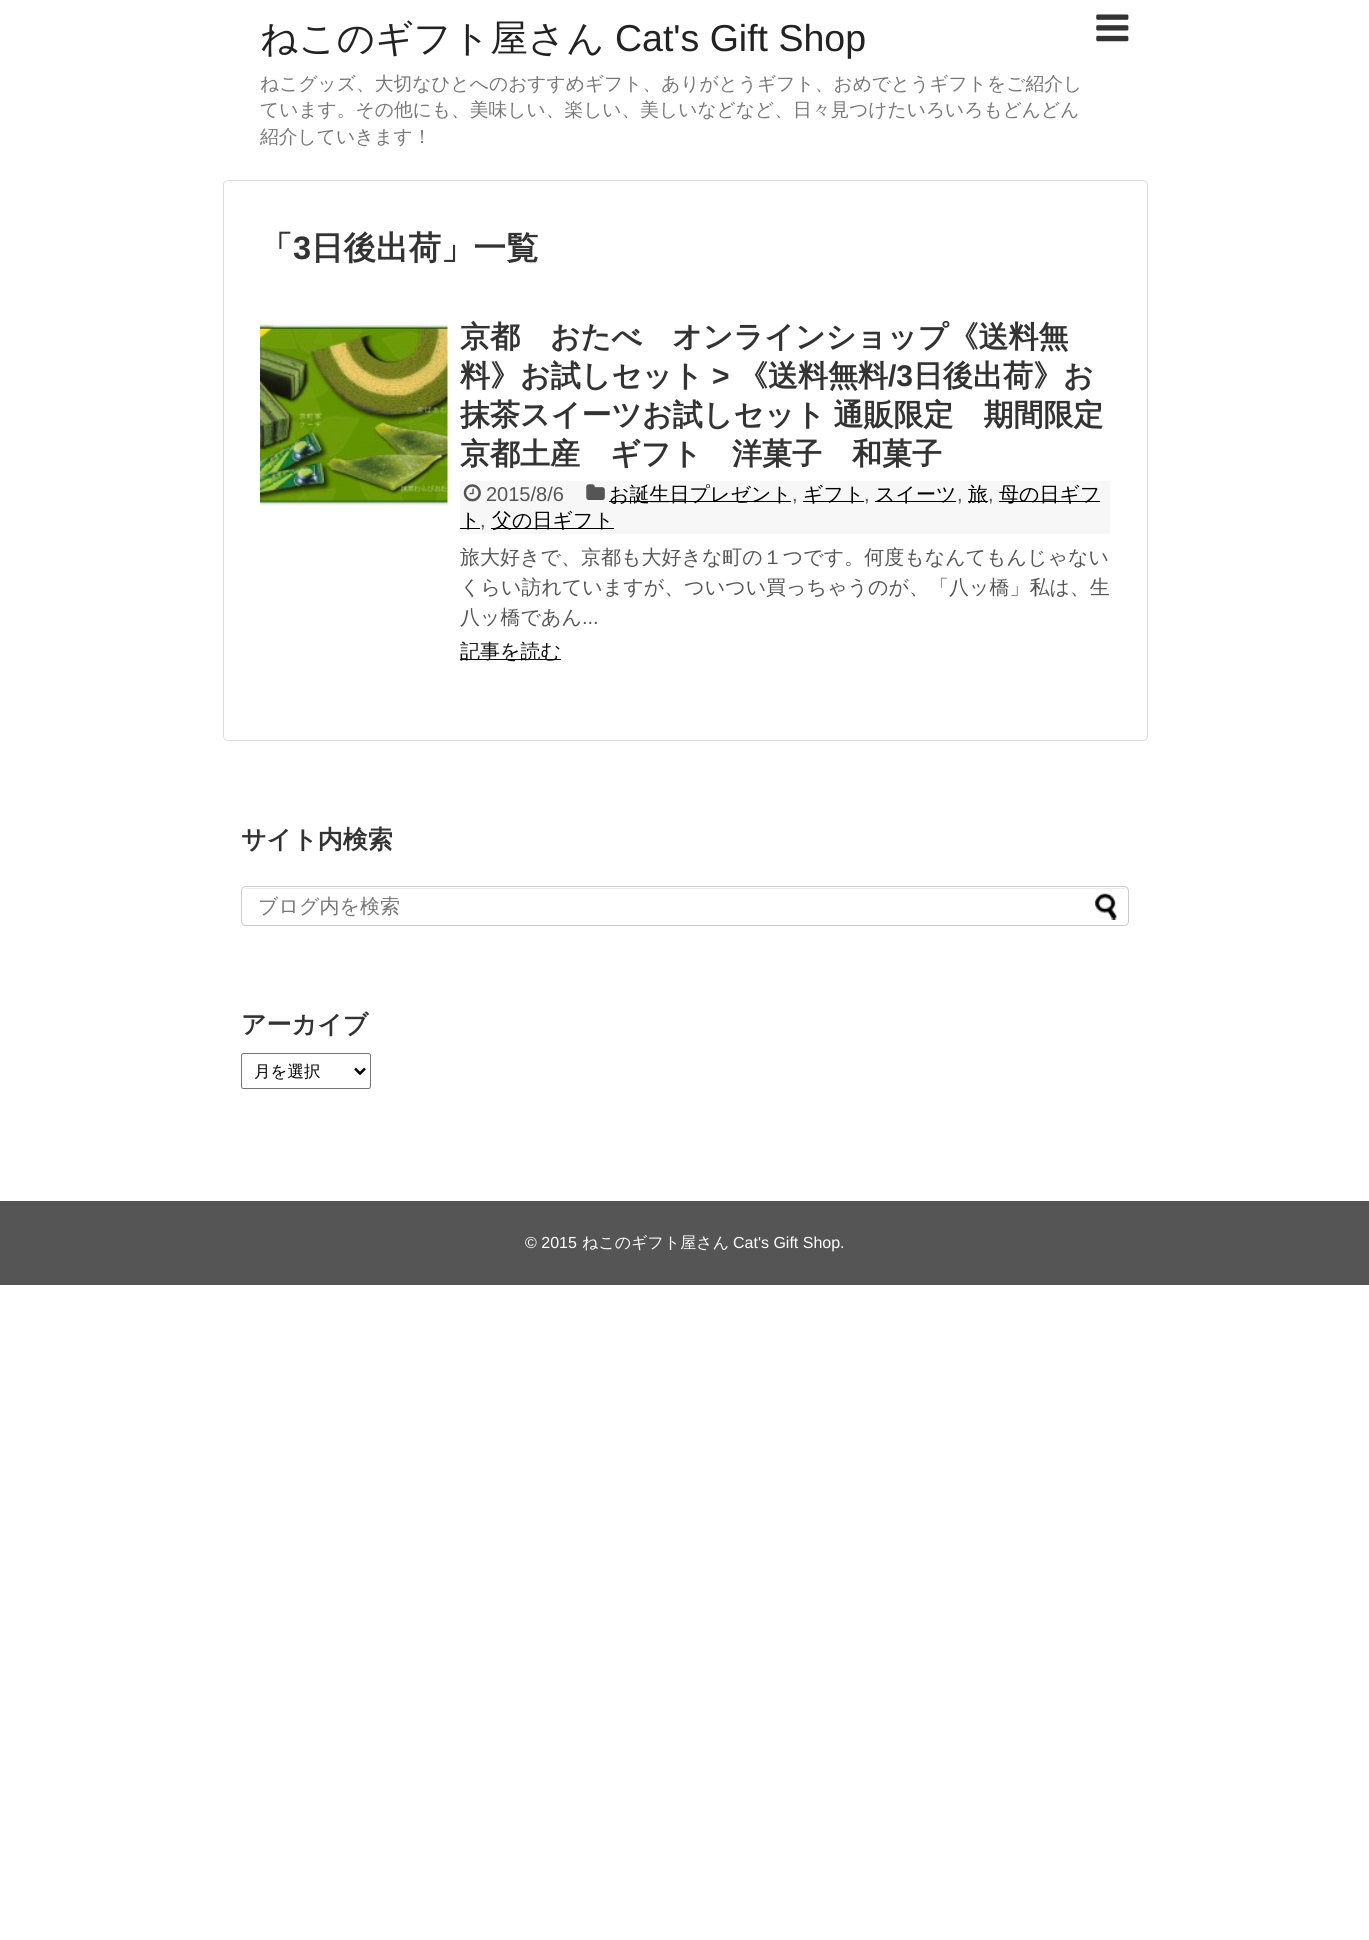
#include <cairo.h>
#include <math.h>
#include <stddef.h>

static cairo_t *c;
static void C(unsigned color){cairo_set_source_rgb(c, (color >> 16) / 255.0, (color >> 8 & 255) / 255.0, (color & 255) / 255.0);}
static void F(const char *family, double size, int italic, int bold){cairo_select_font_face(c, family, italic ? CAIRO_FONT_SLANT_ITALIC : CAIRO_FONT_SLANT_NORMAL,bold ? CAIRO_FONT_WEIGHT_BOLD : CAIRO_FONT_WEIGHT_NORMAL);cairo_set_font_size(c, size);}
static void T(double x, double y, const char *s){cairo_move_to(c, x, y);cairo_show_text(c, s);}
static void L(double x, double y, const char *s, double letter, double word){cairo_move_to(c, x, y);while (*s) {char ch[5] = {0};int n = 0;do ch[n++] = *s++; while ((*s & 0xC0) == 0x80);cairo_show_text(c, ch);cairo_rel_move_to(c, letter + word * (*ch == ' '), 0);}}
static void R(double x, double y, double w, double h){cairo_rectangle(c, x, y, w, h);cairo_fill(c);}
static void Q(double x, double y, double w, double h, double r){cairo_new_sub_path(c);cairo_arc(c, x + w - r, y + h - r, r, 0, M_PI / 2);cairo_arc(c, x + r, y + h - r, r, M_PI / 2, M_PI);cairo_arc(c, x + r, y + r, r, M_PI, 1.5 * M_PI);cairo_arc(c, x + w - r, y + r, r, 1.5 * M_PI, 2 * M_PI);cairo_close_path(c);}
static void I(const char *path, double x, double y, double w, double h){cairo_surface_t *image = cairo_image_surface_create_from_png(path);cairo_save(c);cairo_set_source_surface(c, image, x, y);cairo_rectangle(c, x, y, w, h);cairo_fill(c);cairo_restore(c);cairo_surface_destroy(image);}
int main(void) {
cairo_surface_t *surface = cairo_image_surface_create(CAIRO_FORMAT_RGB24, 1369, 1940);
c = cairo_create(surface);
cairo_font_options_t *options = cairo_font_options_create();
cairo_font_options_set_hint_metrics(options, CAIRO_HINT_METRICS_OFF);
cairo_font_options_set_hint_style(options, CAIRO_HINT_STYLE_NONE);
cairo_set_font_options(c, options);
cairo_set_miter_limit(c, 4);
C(0xffffff);
cairo_paint(c);
F("WenQuanYi Zen Hei Medium",37.5,0,0);
C(0x222222);
T(260,51,"ねこのギフト屋さん");
F("Liberation Sans",37.5,0,0);
T(615,51,"Cat's Gift Shop");
F("WenQuanYi Zen Hei Medium",18.75,0,0);
C(0x777777);
T(260,90,"ねこグッズ、大切なひとへのおすすめギフト、ありがとうギフト、おめでとうギフトをご紹介し");
T(260,116,"ています。その他にも、美味しい、楽しい、美しいなどなど、日々見つけたいろいろもどんどん");
T(260,143,"紹介していきます！");
I("1.png",1096,14,33,28);
Q(223.5,180.5,924,560,4.5);
C(0xdddddd);
cairo_set_line_width(c,1);
cairo_stroke(c);
F("WenQuanYi Zen Hei",32.5,0,1);
C(0x333333);
T(260,259,"「");
F("Liberation Sans",32.5,0,1);
T(293,259,"3");
F("WenQuanYi Zen Hei",32.5,0,1);
T(311,259,"日後出荷」一覧");
I("2.png",260,321,188,185);
F("WenQuanYi Zen Hei",30,0,1);
T(460,347,"京都　おたべ　オンラインショップ《送料無");
T(460,386,"料》お試しセット");
F("Liberation Sans",30,0,1);
T(712,386,">");
F("WenQuanYi Zen Hei",30,0,1);
T(738,386,"《送料無料");
F("Liberation Sans",30,0,1);
T(888,386,"/3");
F("WenQuanYi Zen Hei",30,0,1);
T(913,386,"日後出荷》お");
L(460,425,"抹茶スイーツお試しセット 通販限定　期間限定",0,-1);
T(460,464,"京都土産　ギフト　洋菓子　和菓子");
C(0xf7f7f7);
R(460,481,650,53);
I("3.png",586,484,19,16);
C(0x000000);
R(609,501,182,1);
F("WenQuanYi Zen Hei Medium",20,0,0);
T(609,501,"お誕生日プレゼント");
F("Liberation Sans",20,0,0);
C(0x555555);
T(792,501,",");
C(0x000000);
R(803,501,61,1);
F("WenQuanYi Zen Hei Medium",20,0,0);
T(803,501,"ギフト");
F("Liberation Sans",20,0,0);
C(0x555555);
T(864,501,",");
C(0x000000);
R(875,501,81,1);
F("WenQuanYi Zen Hei Medium",20,0,0);
T(875,501,"スイーツ");
F("Liberation Sans",20,0,0);
C(0x555555);
T(957,501,",");
C(0x000000);
R(968,501,20,1);
F("WenQuanYi Zen Hei Medium",20,0,0);
T(968,501,"旅");
F("Liberation Sans",20,0,0);
C(0x555555);
T(988,501,",");
C(0x000000);
R(999,501,101,1);
F("WenQuanYi Zen Hei Medium",20,0,0);
T(999,501,"母の日ギフ");
R(460,528,20,1);
T(460,527,"ト");
F("Liberation Sans",20,0,0);
C(0x555555);
T(480,527,",");
C(0x000000);
R(491,528,123,1);
F("WenQuanYi Zen Hei Medium",20,0,0);
T(492,527,"父の日ギフト");
I("4.png",463,484,18,18);
F("Liberation Sans",20,0,0);
C(0x555555);
T(486,501,"2015/8/6");
F("WenQuanYi Zen Hei Medium",20,0,0);
T(460,564,"旅大好きで、京都も大好きな町の１つです。何度もなんてもんじゃない");
T(460,594,"くらい訪れていますが、ついつい買っちゃうのが、「八ッ橋」私は、生");
T(460,624,"八ッ橋であん");
F("Liberation Sans",20,0,0);
T(582,624,"...");
C(0x111111);
R(460,659,101,1);
F("WenQuanYi Zen Hei Medium",20,0,0);
T(460,658,"記事を読む");
F("WenQuanYi Zen Hei",25,0,1);
C(0x333333);
T(241,848,"サイト内検索");
C(0xececec);
cairo_new_path(c);
cairo_move_to(c,246,889);
cairo_line_to(c,1124,889);
cairo_curve_to(c,1126,889,1128,890,1128,892);
cairo_curve_to(c,1128,890,1126,888,1124,888);
cairo_line_to(c,247,888);
cairo_curve_to(c,246,888,245,889,244,889);
cairo_close_path(c);
cairo_fill(c);
Q(241.5,886.5,887,39,4.5);
C(0xcccccc);
cairo_stroke(c);
F("WenQuanYi Zen Hei Medium",20,0,0);
C(0x777777);
T(258,913,"ブログ内を検索");
I("5.png",1094,893,23,27);
F("WenQuanYi Zen Hei",25,0,1);
C(0x333333);
T(241,1033,"アーカイブ");
Q(241.5,1053.5,129,35,2);
C(0x767676);
cairo_stroke(c);
cairo_new_path(c);
cairo_move_to(c,355,1068.5);
cairo_line_to(c,360,1073.5);
cairo_line_to(c,365,1068.5);
C(0x000000);
cairo_set_line_width(c,2.5);
cairo_stroke(c);
F("WenQuanYi Zen Hei Medium",16.5,0,0);
T(254,1077,"月を選択");
C(0x555555);
R(0,1201,1369,84);
F("Liberation Sans",16,0,0);
C(0xffffff);
T(525,1248,"© 2015");
F("WenQuanYi Zen Hei Medium",16,0,0);
T(582,1248,"ねこのギフト屋さん");
F("Liberation Sans",16,0,0);
T(733,1248,"Cat's Gift Shop.");
cairo_surface_write_to_png(surface, "o.png");
cairo_font_options_destroy(options);
cairo_destroy(c);
cairo_surface_destroy(surface);
return 0;
}
